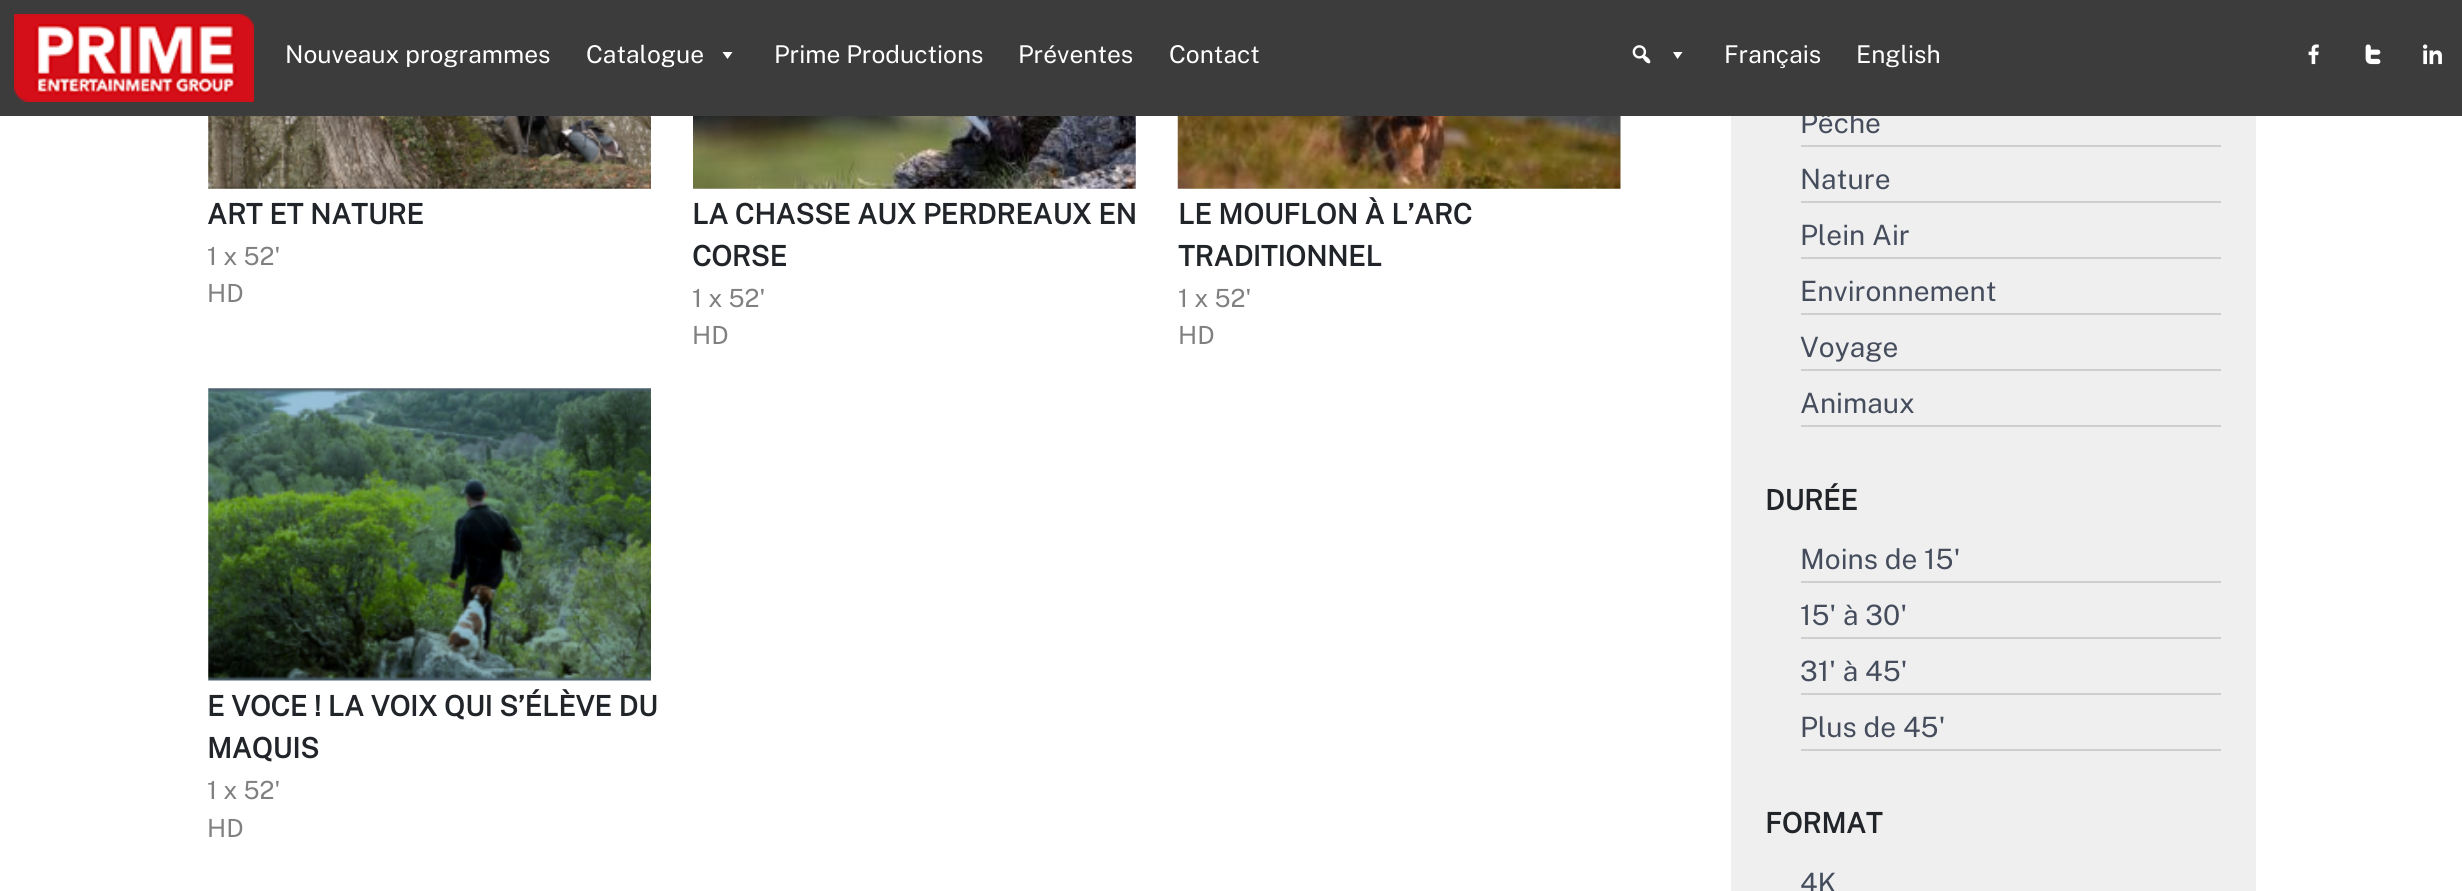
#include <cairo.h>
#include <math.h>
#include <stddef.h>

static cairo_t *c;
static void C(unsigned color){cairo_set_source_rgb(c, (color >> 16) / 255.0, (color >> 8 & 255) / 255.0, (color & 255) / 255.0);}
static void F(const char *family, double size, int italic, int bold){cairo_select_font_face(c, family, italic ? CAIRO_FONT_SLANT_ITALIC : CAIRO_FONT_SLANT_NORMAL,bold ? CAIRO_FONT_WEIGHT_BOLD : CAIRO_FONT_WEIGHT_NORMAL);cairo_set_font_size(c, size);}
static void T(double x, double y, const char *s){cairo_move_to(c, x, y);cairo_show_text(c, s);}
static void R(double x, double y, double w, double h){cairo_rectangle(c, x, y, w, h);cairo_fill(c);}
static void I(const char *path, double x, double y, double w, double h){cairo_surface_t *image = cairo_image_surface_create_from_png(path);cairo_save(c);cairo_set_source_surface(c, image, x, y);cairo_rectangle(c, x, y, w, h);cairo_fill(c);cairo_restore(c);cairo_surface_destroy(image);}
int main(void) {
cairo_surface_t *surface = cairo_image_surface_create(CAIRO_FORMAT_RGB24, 2462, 891);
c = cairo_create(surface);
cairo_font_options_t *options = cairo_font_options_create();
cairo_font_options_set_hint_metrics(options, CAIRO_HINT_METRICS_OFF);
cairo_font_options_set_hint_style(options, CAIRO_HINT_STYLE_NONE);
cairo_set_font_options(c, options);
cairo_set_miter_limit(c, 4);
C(0xffffff);
cairo_paint(c);
C(0xefefef);
R(1731,116,525,775);
F("Public Sans Thin",28,0,0);
C(0x454d5d);
T(1800,133,"Pêche");
C(0x3c3c3c);
R(0,0,2462,116);
I("1.png",14,14,240,88);
F("Public Sans Thin",24.5,0,0);
C(0xffffff);
T(285,63,"Nouveaux programmes");
T(586,63,"Catalogue");
cairo_new_path(c);
cairo_move_to(c,732.5,52);
cairo_line_to(c,727.5,59);
cairo_line_to(c,722.5,52);
cairo_close_path(c);
cairo_fill(c);
T(774,63,"Prime Productions");
T(1018,63,"Préventes");
T(1169,63,"Contact");
I("2.png",1632,45,19,19);
cairo_new_path(c);
cairo_move_to(c,1682.5,52);
cairo_line_to(c,1677.5,59);
cairo_line_to(c,1673,52);
cairo_close_path(c);
cairo_fill(c);
T(1724,63,"Français");
T(1856,63,"English");
I("3.png",2308,44,11,21);
I("4.png",2365,44,16,21);
I("5.png",2422,44,20,21);
I("6.png",208,116,443,73);
F("Public Sans",28,0,1);
C(0x212529);
T(207,224,"ART ET NATURE");
F("Public Sans Thin",25,0,0);
C(0x808080);
T(207,265,"1 x 52'");
T(207,302,"HD");
I("7.png",693,116,443,73);
F("Public Sans",28,0,1);
C(0x212529);
T(692,224,"LA CHASSE AUX PERDREAUX EN");
T(692,266,"CORSE");
F("Public Sans Thin",25,0,0);
C(0x808080);
T(692,307,"1 x 52'");
T(692,344,"HD");
I("8.png",1177,116,444,73);
F("Public Sans",28,0,1);
C(0x212529);
T(1178,224,"LE MOUFLON À L’ARC");
T(1178,266,"TRADITIONNEL");
F("Public Sans Thin",25,0,0);
C(0x808080);
T(1178,307,"1 x 52'");
T(1178,344,"HD");
I("9.png",208,388,443,293);
F("Public Sans",28,0,1);
C(0x212529);
T(207,716,"E VOCE ! LA VOIX QUI S’ÉLÈVE DU");
T(207,758,"MAQUIS");
F("Public Sans Thin",25,0,0);
C(0x808080);
T(207,799,"1 x 52'");
T(207,837,"HD");
C(0xcecece);
R(1801,145,420,2);
R(1801,201,420,2);
F("Public Sans Thin",28,0,0);
C(0x454d5d);
T(1800,189,"Nature");
C(0xcecece);
R(1801,257,420,2);
C(0x454d5d);
T(1800,245,"Plein Air");
C(0xcecece);
R(1801,313,420,2);
C(0x454d5d);
T(1800,301,"Environnement");
C(0xcecece);
R(1801,369,420,2);
C(0x454d5d);
T(1800,357,"Voyage");
C(0xcecece);
R(1801,425,420,2);
C(0x454d5d);
T(1800,413,"Animaux");
F("Public Sans",28,0,1);
C(0x212529);
T(1765,510,"DURÉE");
C(0xcecece);
R(1801,581,420,2);
F("Public Sans Thin",28,0,0);
C(0x454d5d);
T(1800,569,"Moins de 15'");
C(0xcecece);
R(1801,637,420,2);
C(0x454d5d);
T(1800,625,"15' à 30'");
C(0xcecece);
R(1801,693,420,2);
C(0x454d5d);
T(1800,681,"31' à 45'");
C(0xcecece);
R(1801,749,420,2);
C(0x454d5d);
T(1800,737,"Plus de 45'");
F("Public Sans",28,0,1);
C(0x212529);
T(1765,833,"FORMAT");
F("Public Sans Thin",28,0,0);
C(0x454d5d);
T(1800,893,"4K");
cairo_surface_write_to_png(surface, "o.png");
cairo_font_options_destroy(options);
cairo_destroy(c);
cairo_surface_destroy(surface);
return 0;
}
